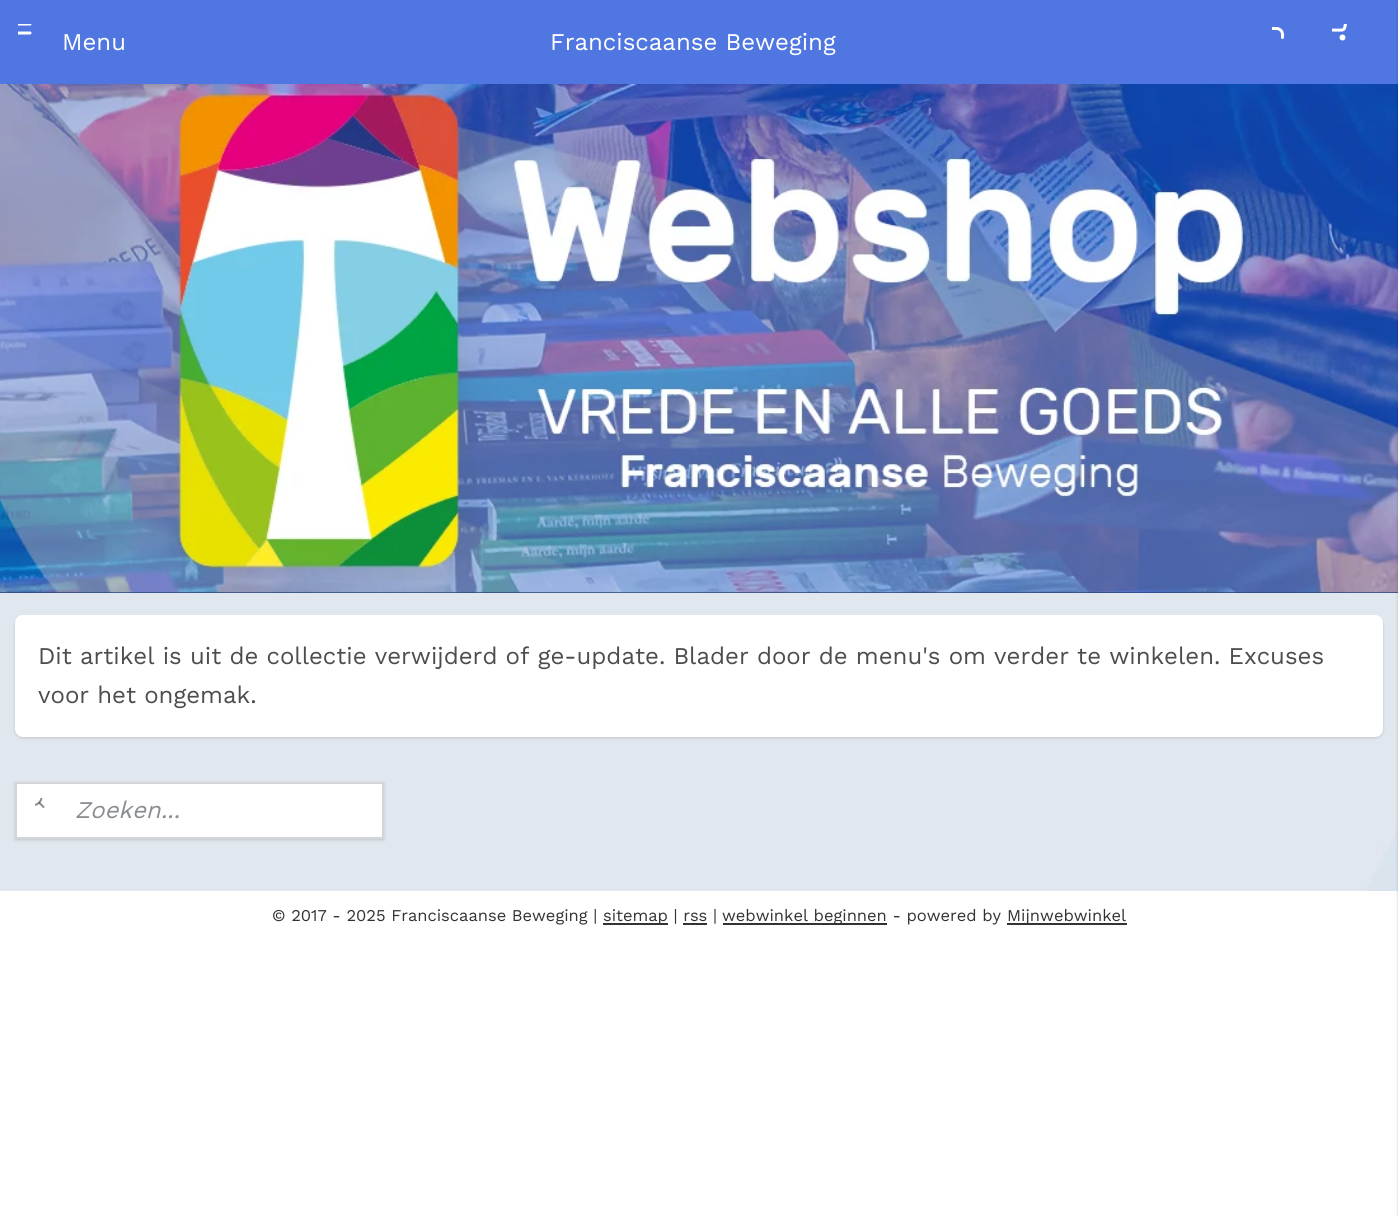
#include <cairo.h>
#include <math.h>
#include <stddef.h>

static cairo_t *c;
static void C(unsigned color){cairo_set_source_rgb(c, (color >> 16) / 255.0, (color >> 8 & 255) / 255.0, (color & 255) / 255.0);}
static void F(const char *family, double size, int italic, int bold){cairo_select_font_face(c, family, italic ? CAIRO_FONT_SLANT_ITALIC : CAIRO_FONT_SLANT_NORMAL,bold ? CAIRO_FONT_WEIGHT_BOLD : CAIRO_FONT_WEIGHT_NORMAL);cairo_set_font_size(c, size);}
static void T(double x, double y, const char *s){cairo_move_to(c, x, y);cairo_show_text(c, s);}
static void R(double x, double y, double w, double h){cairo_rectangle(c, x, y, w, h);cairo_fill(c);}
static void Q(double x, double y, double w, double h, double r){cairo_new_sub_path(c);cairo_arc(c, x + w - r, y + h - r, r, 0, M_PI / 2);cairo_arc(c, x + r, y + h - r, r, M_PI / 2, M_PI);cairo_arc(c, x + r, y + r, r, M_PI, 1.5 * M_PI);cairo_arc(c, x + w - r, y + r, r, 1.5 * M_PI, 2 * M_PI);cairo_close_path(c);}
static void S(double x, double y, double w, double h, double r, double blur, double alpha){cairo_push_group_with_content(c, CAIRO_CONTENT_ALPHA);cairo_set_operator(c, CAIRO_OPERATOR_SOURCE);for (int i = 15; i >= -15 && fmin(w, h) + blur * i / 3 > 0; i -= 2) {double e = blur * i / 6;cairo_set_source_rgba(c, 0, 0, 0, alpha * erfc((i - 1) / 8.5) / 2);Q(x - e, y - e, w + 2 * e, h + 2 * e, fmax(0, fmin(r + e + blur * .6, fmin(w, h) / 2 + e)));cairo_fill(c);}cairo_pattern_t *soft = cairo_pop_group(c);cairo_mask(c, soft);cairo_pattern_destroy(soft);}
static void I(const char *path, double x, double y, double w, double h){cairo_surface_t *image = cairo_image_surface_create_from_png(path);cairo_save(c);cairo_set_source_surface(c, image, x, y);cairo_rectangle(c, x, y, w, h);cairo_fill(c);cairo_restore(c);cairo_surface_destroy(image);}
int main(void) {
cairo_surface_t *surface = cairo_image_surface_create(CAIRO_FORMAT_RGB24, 1398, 1216);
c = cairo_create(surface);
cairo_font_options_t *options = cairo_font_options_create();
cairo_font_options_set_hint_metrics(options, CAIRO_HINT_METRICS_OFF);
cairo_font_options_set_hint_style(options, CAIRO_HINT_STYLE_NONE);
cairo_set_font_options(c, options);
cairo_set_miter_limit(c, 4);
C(0xffffff);
cairo_paint(c);
C(0x5076e1);
R(0,0,1398,84);
I("1.png",18,24,14,11);
F("Work Sans",24,0,0);
C(0xffffff);
T(62,50,"Menu");
T(550,50,"Franciscaanse Beweging");
I("2.png",1272,27,12,12);
I("3.png",1332,24,15,17);
I("4.png",0,593,1398,298);
C(0x29457e);
R(0,592,1398,1);
I("5.png",0,84,1398,509);
C(0x000000);
S(1398,2,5,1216,0,1.5,.2);
S(15,617,1368,121,8,1.5,.15);
C(0xffffff);
Q(15,615,1368,122,8);
cairo_fill(c);
C(0x4d4d4d);
T(38,664,"Dit artikel is uit de collectie verwijderd of ge-update. Blader door de menu's om verder te winkelen. Excuses");
T(38,703,"voor het ongemak.");
C(0x000000);
S(15,783,369,57,0,1.5,.15);
C(0xffffff);
cairo_rectangle(c,16,783,367,55);
cairo_fill_preserve(c);
C(0xd3d5d9);
cairo_stroke(c);
I("6.png",35,798,10,10);
F("Work Sans",24,1,0);
C(0x898c91);
T(75,818,"Zoeken...");
F("Work Sans",16.5,0,0);
C(0x333333);
T(272,921,"© 2017 - 2025 Franciscaanse Beweging |");
R(603,923,65,2);
T(603,921,"sitemap | rss |");
R(723,923,164,2);
T(722,921,"webwinkel beginnen - powered by");
R(1007,923,120,2);
T(1007,921,"Mijnwebwinkel");
R(683,923,24,2);
cairo_surface_write_to_png(surface, "o.png");
cairo_font_options_destroy(options);
cairo_destroy(c);
cairo_surface_destroy(surface);
return 0;
}
